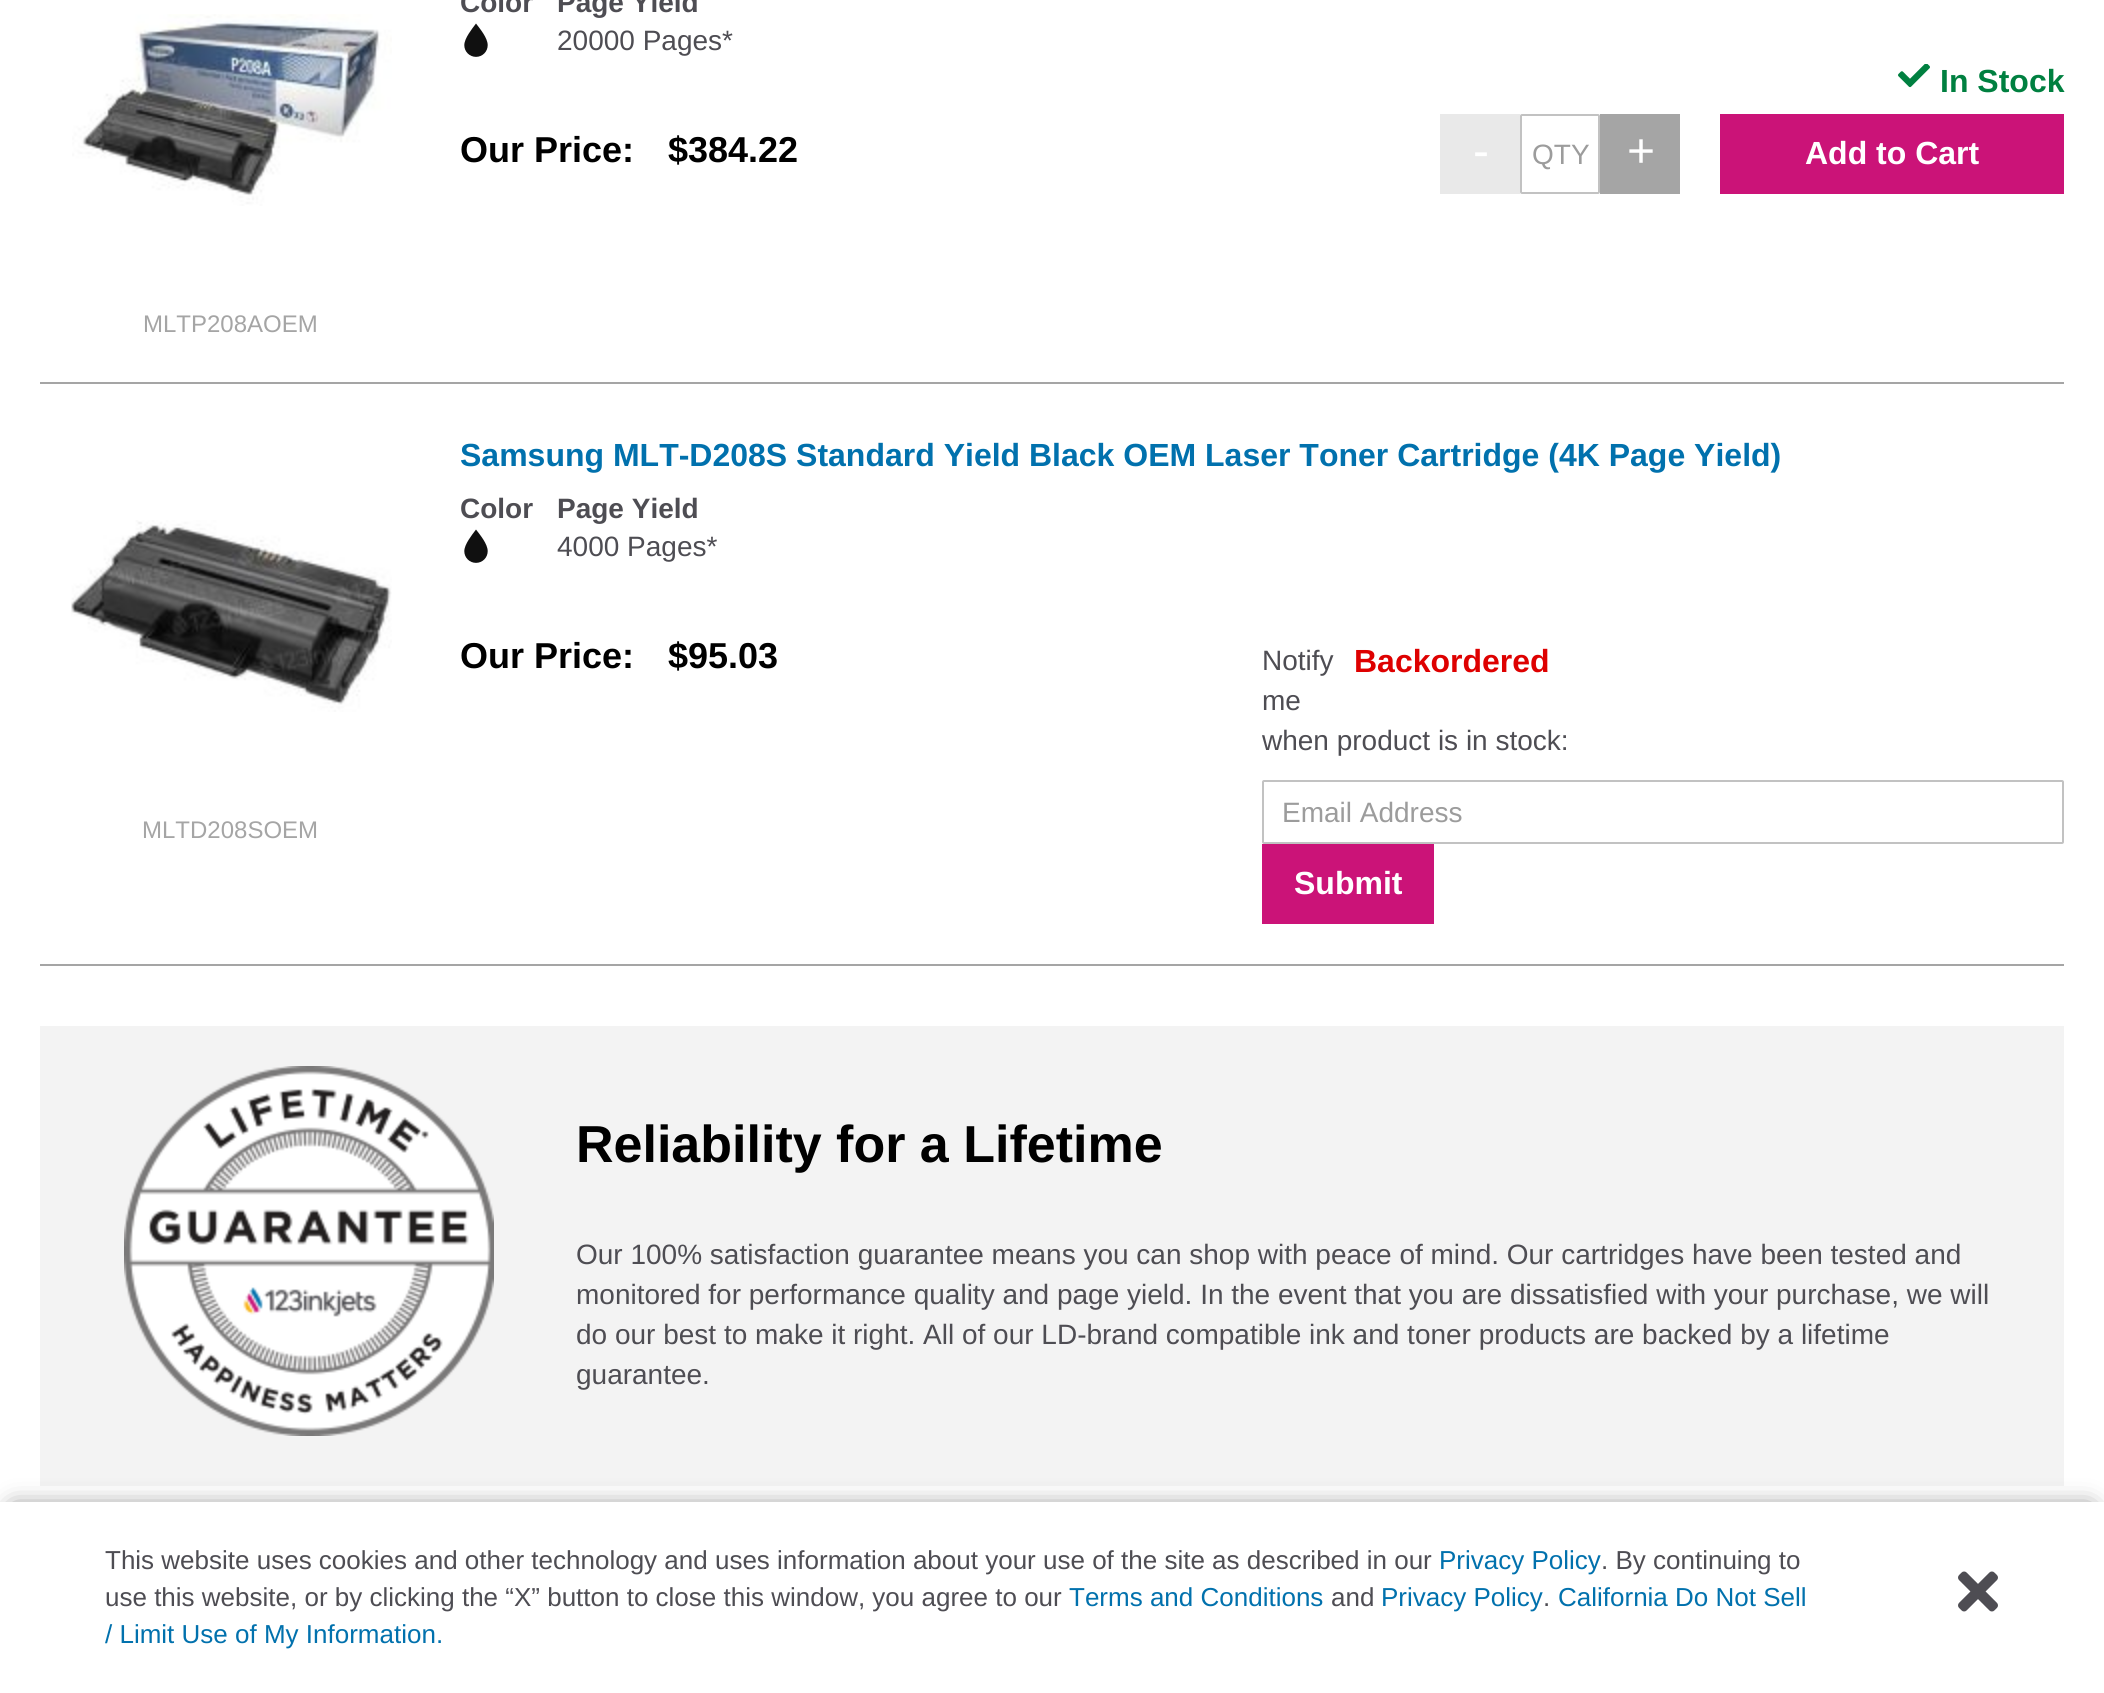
#include <cairo.h>
#include <math.h>
#include <stddef.h>

static cairo_t *c;
static void C(unsigned color){cairo_set_source_rgb(c, (color >> 16) / 255.0, (color >> 8 & 255) / 255.0, (color & 255) / 255.0);}
static void F(const char *family, double size, int italic, int bold){cairo_select_font_face(c, family, italic ? CAIRO_FONT_SLANT_ITALIC : CAIRO_FONT_SLANT_NORMAL,bold ? CAIRO_FONT_WEIGHT_BOLD : CAIRO_FONT_WEIGHT_NORMAL);cairo_set_font_size(c, size);}
static void T(double x, double y, const char *s){cairo_move_to(c, x, y);cairo_show_text(c, s);}
static void R(double x, double y, double w, double h){cairo_rectangle(c, x, y, w, h);cairo_fill(c);}
static void Q(double x, double y, double w, double h, double r){cairo_new_sub_path(c);cairo_arc(c, x + w - r, y + h - r, r, 0, M_PI / 2);cairo_arc(c, x + r, y + h - r, r, M_PI / 2, M_PI);cairo_arc(c, x + r, y + r, r, M_PI, 1.5 * M_PI);cairo_arc(c, x + w - r, y + r, r, 1.5 * M_PI, 2 * M_PI);cairo_close_path(c);}
static void S(double x, double y, double w, double h, double r, double blur, double alpha){cairo_push_group_with_content(c, CAIRO_CONTENT_ALPHA);cairo_set_operator(c, CAIRO_OPERATOR_SOURCE);for (int i = 15; i >= -15 && fmin(w, h) + blur * i / 3 > 0; i -= 2) {double e = blur * i / 6;cairo_set_source_rgba(c, 0, 0, 0, alpha * erfc((i - 1) / 8.5) / 2);Q(x - e, y - e, w + 2 * e, h + 2 * e, fmax(0, fmin(r + e + blur * .6, fmin(w, h) / 2 + e)));cairo_fill(c);}cairo_pattern_t *soft = cairo_pop_group(c);cairo_mask(c, soft);cairo_pattern_destroy(soft);}
static void I(const char *path, double x, double y, double w, double h){cairo_surface_t *image = cairo_image_surface_create_from_png(path);cairo_save(c);cairo_set_source_surface(c, image, x, y);cairo_rectangle(c, x, y, w, h);cairo_fill(c);cairo_restore(c);cairo_surface_destroy(image);}
int main(void) {
cairo_surface_t *surface = cairo_image_surface_create(CAIRO_FORMAT_RGB24, 2104, 1693);
c = cairo_create(surface);
cairo_font_options_t *options = cairo_font_options_create();
cairo_font_options_set_hint_metrics(options, CAIRO_HINT_METRICS_OFF);
cairo_font_options_set_hint_style(options, CAIRO_HINT_STYLE_NONE);
cairo_set_font_options(c, options);
cairo_set_miter_limit(c, 4);
C(0xffffff);
cairo_paint(c);
F("Liberation Sans",28,0,1);
C(0x4e4d53);
T(460,12,"Color");
I("1.png",464,23,24,34);
T(557,12,"Page Yield");
F("Liberation Sans",28,0,0);
T(557,50,"20000 Pages*");
F("Liberation Sans",36,0,1);
C(0x000000);
T(460,162,"Our Price:");
T(668,162,"$384.22");
I("2.png",1898,64,32,24);
F("Liberation Sans",32,0,1);
C(0x008040);
T(1940,92,"In Stock");
C(0xe9e9e9);
R(1440,114,80,80);
F("Liberation Sans",48,0,0);
C(0xffffff);
T(1473,167,"-");
Q(1521,115,78,78,1);
C(0xc2c2c2);
cairo_stroke(c);
F("Liberation Sans",28,0,0);
C(0x9c9c9c);
T(1532,164,"QTY");
C(0xa5a5a5);
R(1600,114,80,80);
F("Liberation Sans",48,0,0);
C(0xffffff);
T(1627,167,"+");
C(0xcb1378);
R(1720,114,344,80);
F("Liberation Sans",32,0,1);
C(0xffffff);
T(1805,164,"Add to Cart");
I("3.png",72,14,320,192);
F("Liberation Sans",24,0,0);
C(0xa5a5a5);
T(143,332,"MLTP208AOEM");
R(40,382,2024,2);
R(40,964,2024,2);
I("4.png",71,520,321,192);
T(142,838,"MLTD208SOEM");
F("Liberation Sans",32,0,1);
C(0x0171ad);
T(460,466,"Samsung MLT-D208S Standard Yield Black OEM Laser Toner Cartridge (4K Page Yield)");
F("Liberation Sans",28,0,1);
C(0x4e4d53);
T(460,518,"Color");
I("1.png",464,529,24,34);
T(557,518,"Page Yield");
F("Liberation Sans",28,0,0);
T(557,556,"4000 Pages*");
F("Liberation Sans",36,0,1);
C(0x000000);
T(460,668,"Our Price:");
T(668,668,"$95.03");
F("Liberation Sans",32,0,1);
C(0xde0000);
T(1354,672,"Backordered");
F("Liberation Sans",28,0,0);
C(0x4e4d53);
T(1262,670,"Notify");
T(1262,710,"me");
T(1262,750,"when product is in stock:");
Q(1263,781,800,62,1);
C(0xc2c2c2);
cairo_stroke(c);
C(0x9c9c9c);
T(1282,822,"Email Address");
C(0xcb1378);
R(1262,844,172,80);
F("Liberation Sans",32,0,1);
C(0xffffff);
T(1294,894,"Submit");
C(0xf3f3f3);
R(40,1026,2024,460);
I("5.png",124,1066,370,370);
F("Liberation Sans",52,0,1);
C(0x000000);
T(576,1162,"Reliability for a Lifetime");
F("Liberation Sans",28,0,0);
C(0x4e4d53);
T(576,1264,"Our 100% satisfaction guarantee means you can shop with peace of mind. Our cartridges have been tested and");
T(576,1304,"monitored for performance quality and page yield. In the event that you are dissatisfied with your purchase, we will");
T(576,1344,"do our best to make it right. All of our LD-brand compatible ink and toner products are backed by a lifetime");
T(576,1384,"guarantee.");
C(0x000000);
S(14,1510,2076,164,0,13,.64);
C(0xffffff);
R(0,1502,2104,191);
F("Liberation Sans",26,0,0);
C(0x4e4d53);
T(105,1569,"This website uses cookies and other technology and uses information about your use of the site as described in our");
C(0x0171ad);
T(1439,1569,"Privacy Policy");
C(0x4e4d53);
T(1601,1569,". By continuing to");
T(105,1606,"use this website, or by clicking the “X” button to close this window, you agree to our");
C(0x0171ad);
T(1069,1606,"Terms and Conditions");
C(0x4e4d53);
T(1331,1606,"and");
C(0x0171ad);
T(1381,1606,"Privacy Policy");
C(0x4e4d53);
T(1543,1606,".");
C(0x0171ad);
T(1558,1606,"California Do Not Sell");
T(105,1643,"/ Limit Use of My Information.");
I("6.png",1958,1571,40,41);
cairo_surface_write_to_png(surface, "o.png");
cairo_font_options_destroy(options);
cairo_destroy(c);
cairo_surface_destroy(surface);
return 0;
}
